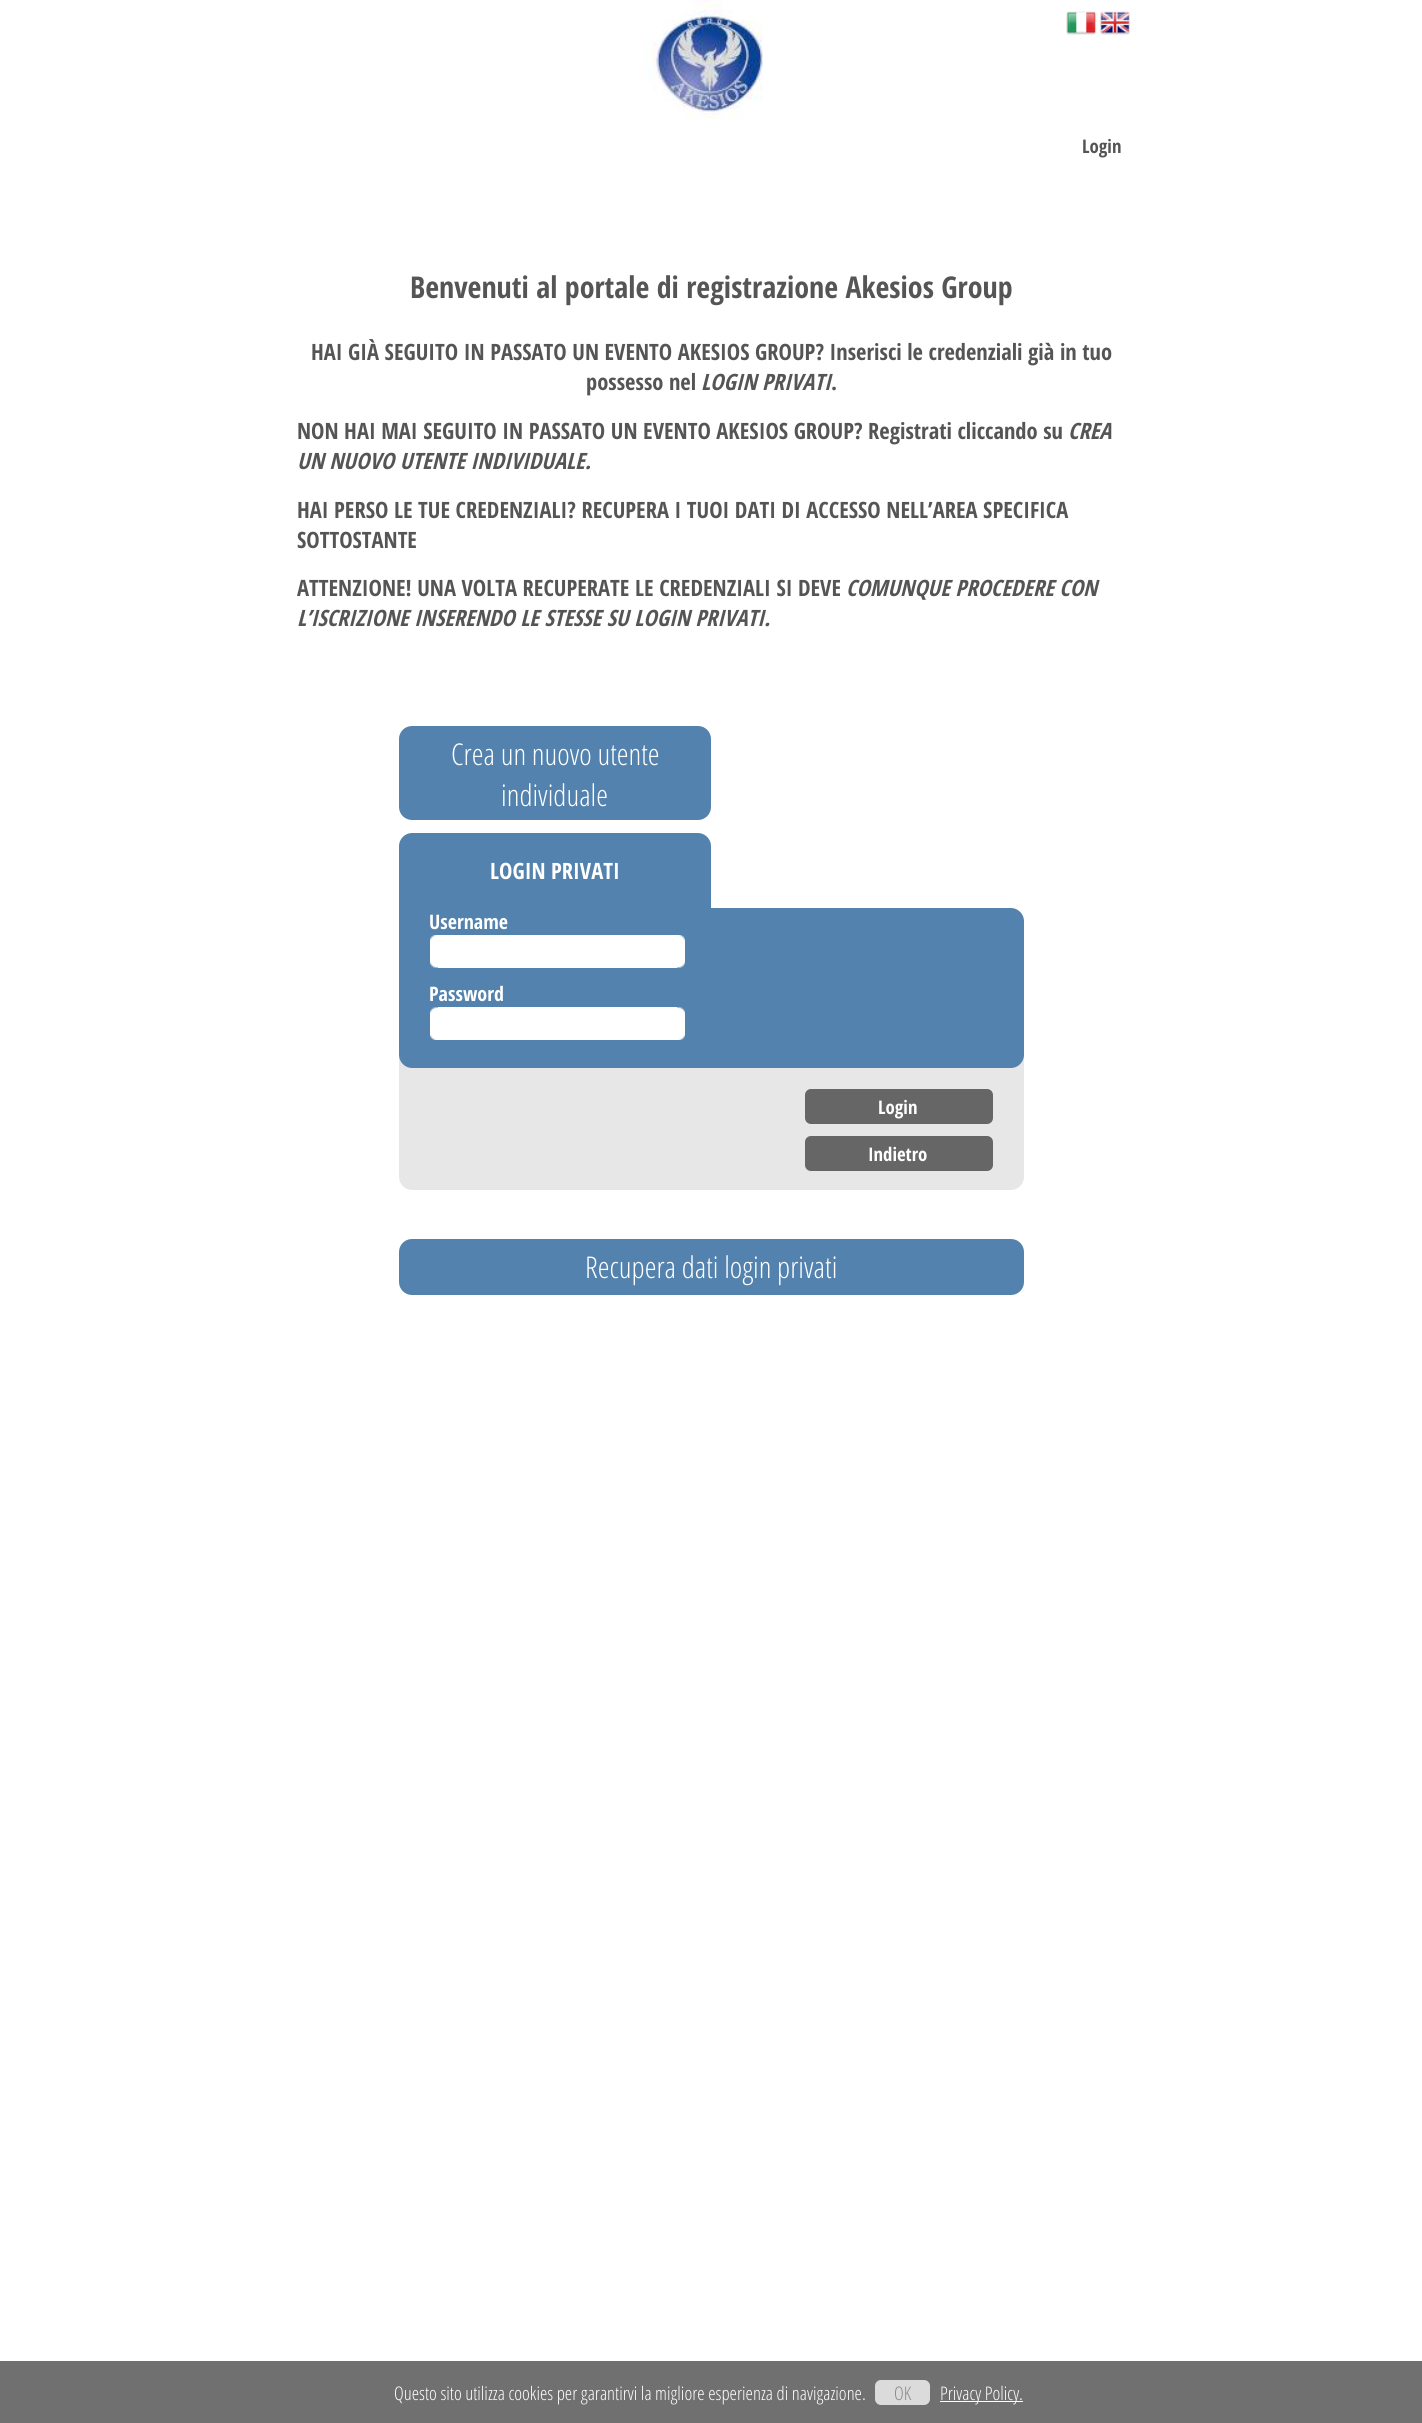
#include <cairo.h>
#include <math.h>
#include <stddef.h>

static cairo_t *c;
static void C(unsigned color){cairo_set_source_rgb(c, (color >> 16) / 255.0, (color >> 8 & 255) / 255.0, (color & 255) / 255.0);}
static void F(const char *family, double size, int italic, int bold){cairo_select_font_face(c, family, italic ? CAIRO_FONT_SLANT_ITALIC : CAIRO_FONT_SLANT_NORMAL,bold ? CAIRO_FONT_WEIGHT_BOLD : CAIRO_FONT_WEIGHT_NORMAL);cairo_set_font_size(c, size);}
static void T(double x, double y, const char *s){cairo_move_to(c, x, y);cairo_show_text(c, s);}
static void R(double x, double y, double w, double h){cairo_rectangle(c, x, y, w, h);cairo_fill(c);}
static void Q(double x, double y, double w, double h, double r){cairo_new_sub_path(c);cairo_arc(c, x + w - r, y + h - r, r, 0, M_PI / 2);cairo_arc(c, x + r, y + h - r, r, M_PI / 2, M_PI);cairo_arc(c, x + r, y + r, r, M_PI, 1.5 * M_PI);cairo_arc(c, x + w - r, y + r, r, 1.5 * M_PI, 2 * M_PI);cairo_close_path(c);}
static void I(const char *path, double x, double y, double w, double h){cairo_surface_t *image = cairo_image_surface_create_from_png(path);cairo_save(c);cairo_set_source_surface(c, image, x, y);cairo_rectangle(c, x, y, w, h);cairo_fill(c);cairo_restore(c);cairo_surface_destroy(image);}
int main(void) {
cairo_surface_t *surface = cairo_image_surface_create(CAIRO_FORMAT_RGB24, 1422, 2423);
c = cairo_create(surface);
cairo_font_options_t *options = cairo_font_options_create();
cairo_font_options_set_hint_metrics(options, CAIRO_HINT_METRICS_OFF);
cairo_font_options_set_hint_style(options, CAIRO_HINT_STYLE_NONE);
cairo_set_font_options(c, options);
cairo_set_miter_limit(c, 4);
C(0xffffff);
cairo_paint(c);
I("1.png",642,0,121,120);
I("2.png",1066,11,31,24);
I("3.png",1100,11,30,24);
F("Open Sans Condensed",18.75,0,1);
C(0x555555);
T(1082,153,"Login");
F("Open Sans Condensed",30,0,1);
T(410,298,"Benvenuti al portale di registrazione Akesios Group");
F("Open Sans Condensed",22.5,0,1);
T(311,360,"HAI GIÀ SEGUITO IN PASSATO UN EVENTO AKESIOS GROUP? Inserisci le credenziali già in tuo");
T(586,390,"possesso nel");
F("Open Sans Condensed",22.5,1,1);
T(701,390,"LOGIN PRIVATI");
F("Open Sans Condensed",22.5,0,1);
T(831,390,".");
T(297,439,"NON HAI MAI SEGUITO IN PASSATO UN EVENTO AKESIOS GROUP? Registrati cliccando su");
F("Open Sans Condensed",22.5,1,1);
T(1068,439,"CREA");
T(297,469,"UN NUOVO UTENTE INDIVIDUALE.");
F("Open Sans Condensed",22.5,0,1);
T(297,518,"HAI PERSO LE TUE CREDENZIALI? RECUPERA I TUOI DATI DI ACCESSO NELL’AREA SPECIFICA");
T(297,548,"SOTTOSTANTE");
T(297,596,"ATTENZIONE! UNA VOLTA RECUPERATE LE CREDENZIALI SI DEVE");
F("Open Sans Condensed",22.5,1,1);
T(846,596,"COMUNQUE PROCEDERE CON");
T(297,626,"L’ISCRIZIONE INSERENDO LE STESSE SU LOGIN PRIVATI.");
C(0x5282ad);
Q(399,726,312,94,13);
cairo_fill(c);
F("Open Sans Condensed Light",30,0,0);
C(0xffffff);
T(451,765,"Crea un nuovo utente");
T(501,806,"individuale");
C(0x5282ad);
cairo_new_path(c);
cairo_move_to(c,412,833);
cairo_line_to(c,698,833);
cairo_curve_to(c,705,833,711,839,711,846);
cairo_line_to(c,711,908);
cairo_line_to(c,399,908);
cairo_line_to(c,399,846);
cairo_curve_to(c,399,839,405,833,412,833);
cairo_close_path(c);
cairo_fill(c);
F("Open Sans Condensed",22.5,0,1);
C(0xffffff);
T(490,879,"LOGIN PRIVATI");
C(0xe7e7e7);
cairo_new_path(c);
cairo_move_to(c,399,1051);
cairo_line_to(c,1024,1051);
cairo_line_to(c,1024,1177);
cairo_curve_to(c,1024,1184,1018,1190,1011,1190);
cairo_line_to(c,412,1190);
cairo_curve_to(c,405,1190,399,1184,399,1177);
cairo_close_path(c);
cairo_fill(c);
C(0x5282ad);
cairo_new_path(c);
cairo_move_to(c,399,908);
cairo_line_to(c,1011,908);
cairo_curve_to(c,1018,908,1024,914,1024,921);
cairo_line_to(c,1024,1055);
cairo_curve_to(c,1024,1062,1018,1068,1011,1068);
cairo_line_to(c,412,1068);
cairo_curve_to(c,405,1068,399,1062,399,1055);
cairo_close_path(c);
cairo_fill(c);
F("Open Sans Condensed",20,0,1);
C(0xffffff);
T(429,929,"Username");
I("4.png",430,935,8,33);
R(438,935,239,33);
I("5.png",677,935,8,33);
T(429,1001,"Password");
I("6.png",430,1007,8,33);
R(438,1007,239,33);
I("7.png",677,1007,8,33);
C(0x666666);
Q(805,1089,188,35,6);
cairo_fill(c);
F("Open Sans Condensed",18.75,0,1);
C(0xffffff);
T(878,1114,"Login");
C(0x666666);
Q(805,1136,188,35,6);
cairo_fill(c);
C(0xffffff);
T(868,1161,"Indietro");
C(0x5282ad);
Q(399,1239,625,56,13);
cairo_fill(c);
F("Open Sans Condensed Light",30,0,0);
C(0xffffff);
T(585,1278,"Recupera dati login privati");
C(0x707070);
R(0,2361,1422,62);
F("Open Sans Condensed Light",18.75,0,0);
C(0xffffff);
T(394,2400,"Questo sito utilizza cookies per garantirvi la migliore esperienza di navigazione.");
C(0xdbdbdb);
Q(875,2380,55,25,6);
cairo_fill(c);
C(0x888888);
T(894,2400,"OK");
C(0xffffff);
R(940,2401,83,1);
T(940,2400,"Privacy Policy.");
cairo_surface_write_to_png(surface, "o.png");
cairo_font_options_destroy(options);
cairo_destroy(c);
cairo_surface_destroy(surface);
return 0;
}
